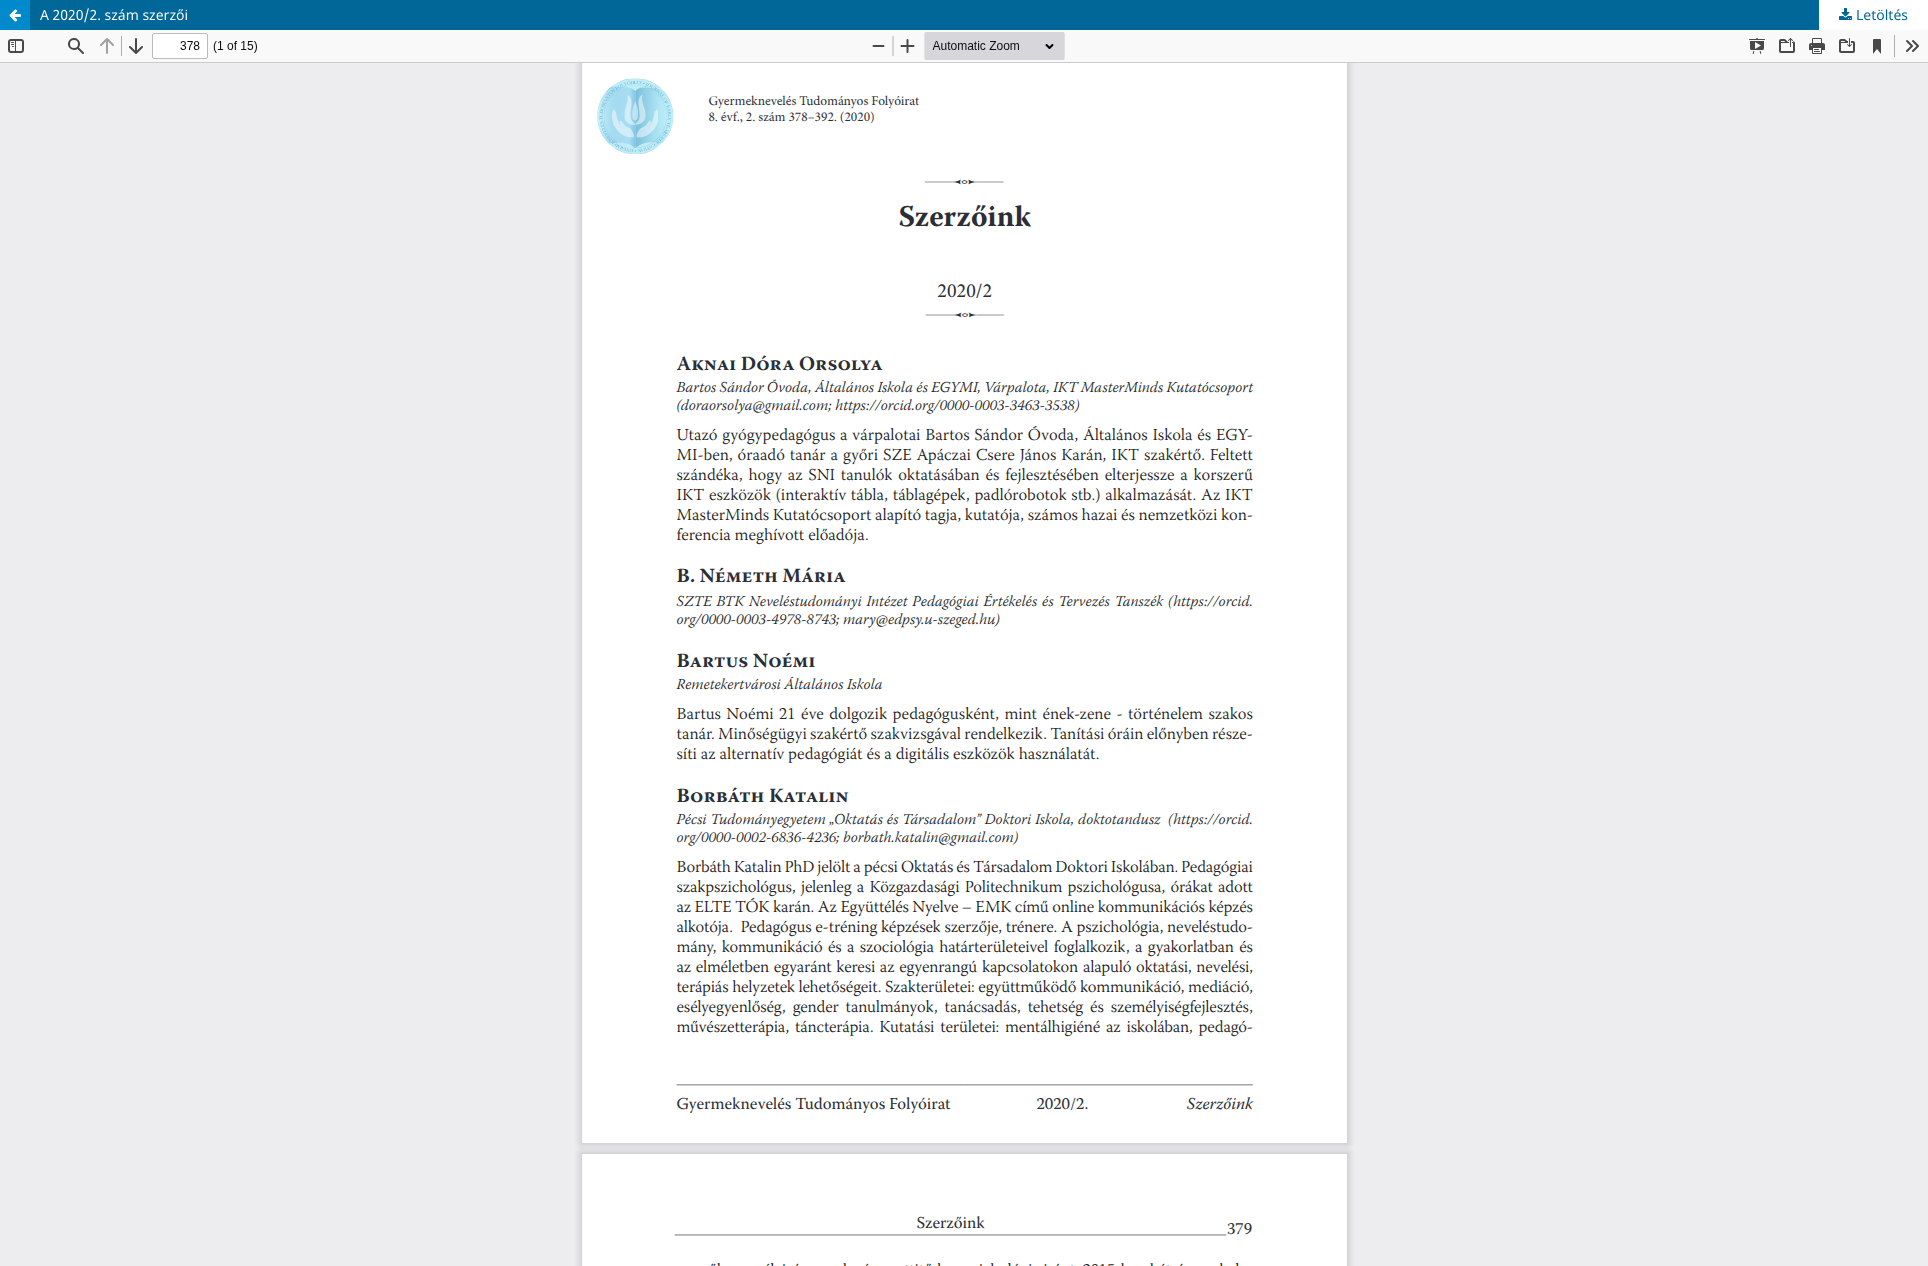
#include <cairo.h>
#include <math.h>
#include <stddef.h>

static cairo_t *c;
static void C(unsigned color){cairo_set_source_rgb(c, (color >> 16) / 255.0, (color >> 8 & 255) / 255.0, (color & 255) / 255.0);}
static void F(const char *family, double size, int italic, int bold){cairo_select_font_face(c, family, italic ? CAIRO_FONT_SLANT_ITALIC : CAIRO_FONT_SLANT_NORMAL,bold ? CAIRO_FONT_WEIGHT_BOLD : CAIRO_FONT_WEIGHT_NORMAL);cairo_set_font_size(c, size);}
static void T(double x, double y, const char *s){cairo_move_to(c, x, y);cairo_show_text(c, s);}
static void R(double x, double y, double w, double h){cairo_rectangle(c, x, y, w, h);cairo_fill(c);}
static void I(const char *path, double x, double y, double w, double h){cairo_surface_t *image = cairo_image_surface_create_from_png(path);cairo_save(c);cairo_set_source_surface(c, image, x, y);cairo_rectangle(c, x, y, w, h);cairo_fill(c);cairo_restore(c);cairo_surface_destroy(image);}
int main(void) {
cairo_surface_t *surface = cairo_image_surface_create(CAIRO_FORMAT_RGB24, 1928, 1266);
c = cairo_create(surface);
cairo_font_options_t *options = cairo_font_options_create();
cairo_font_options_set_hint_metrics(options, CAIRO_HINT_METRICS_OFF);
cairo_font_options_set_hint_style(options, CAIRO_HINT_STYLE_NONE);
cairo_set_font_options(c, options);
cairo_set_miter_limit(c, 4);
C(0xffffff);
cairo_paint(c);
C(0x006798);
R(30,0,1789,30);
C(0x008acb);
R(0,0,30,30);
I("1.png",9,9,12,13);
F("Noto Sans",14,0,0);
C(0xffffff);
T(40,20,"A 2020/2. szám szerzői");
I("2.png",1839,8,13,12);
C(0x006798);
T(1856,20,"Letöltés");
I("3.png",0,30,1928,1236);
cairo_surface_write_to_png(surface, "o.png");
cairo_font_options_destroy(options);
cairo_destroy(c);
cairo_surface_destroy(surface);
return 0;
}
